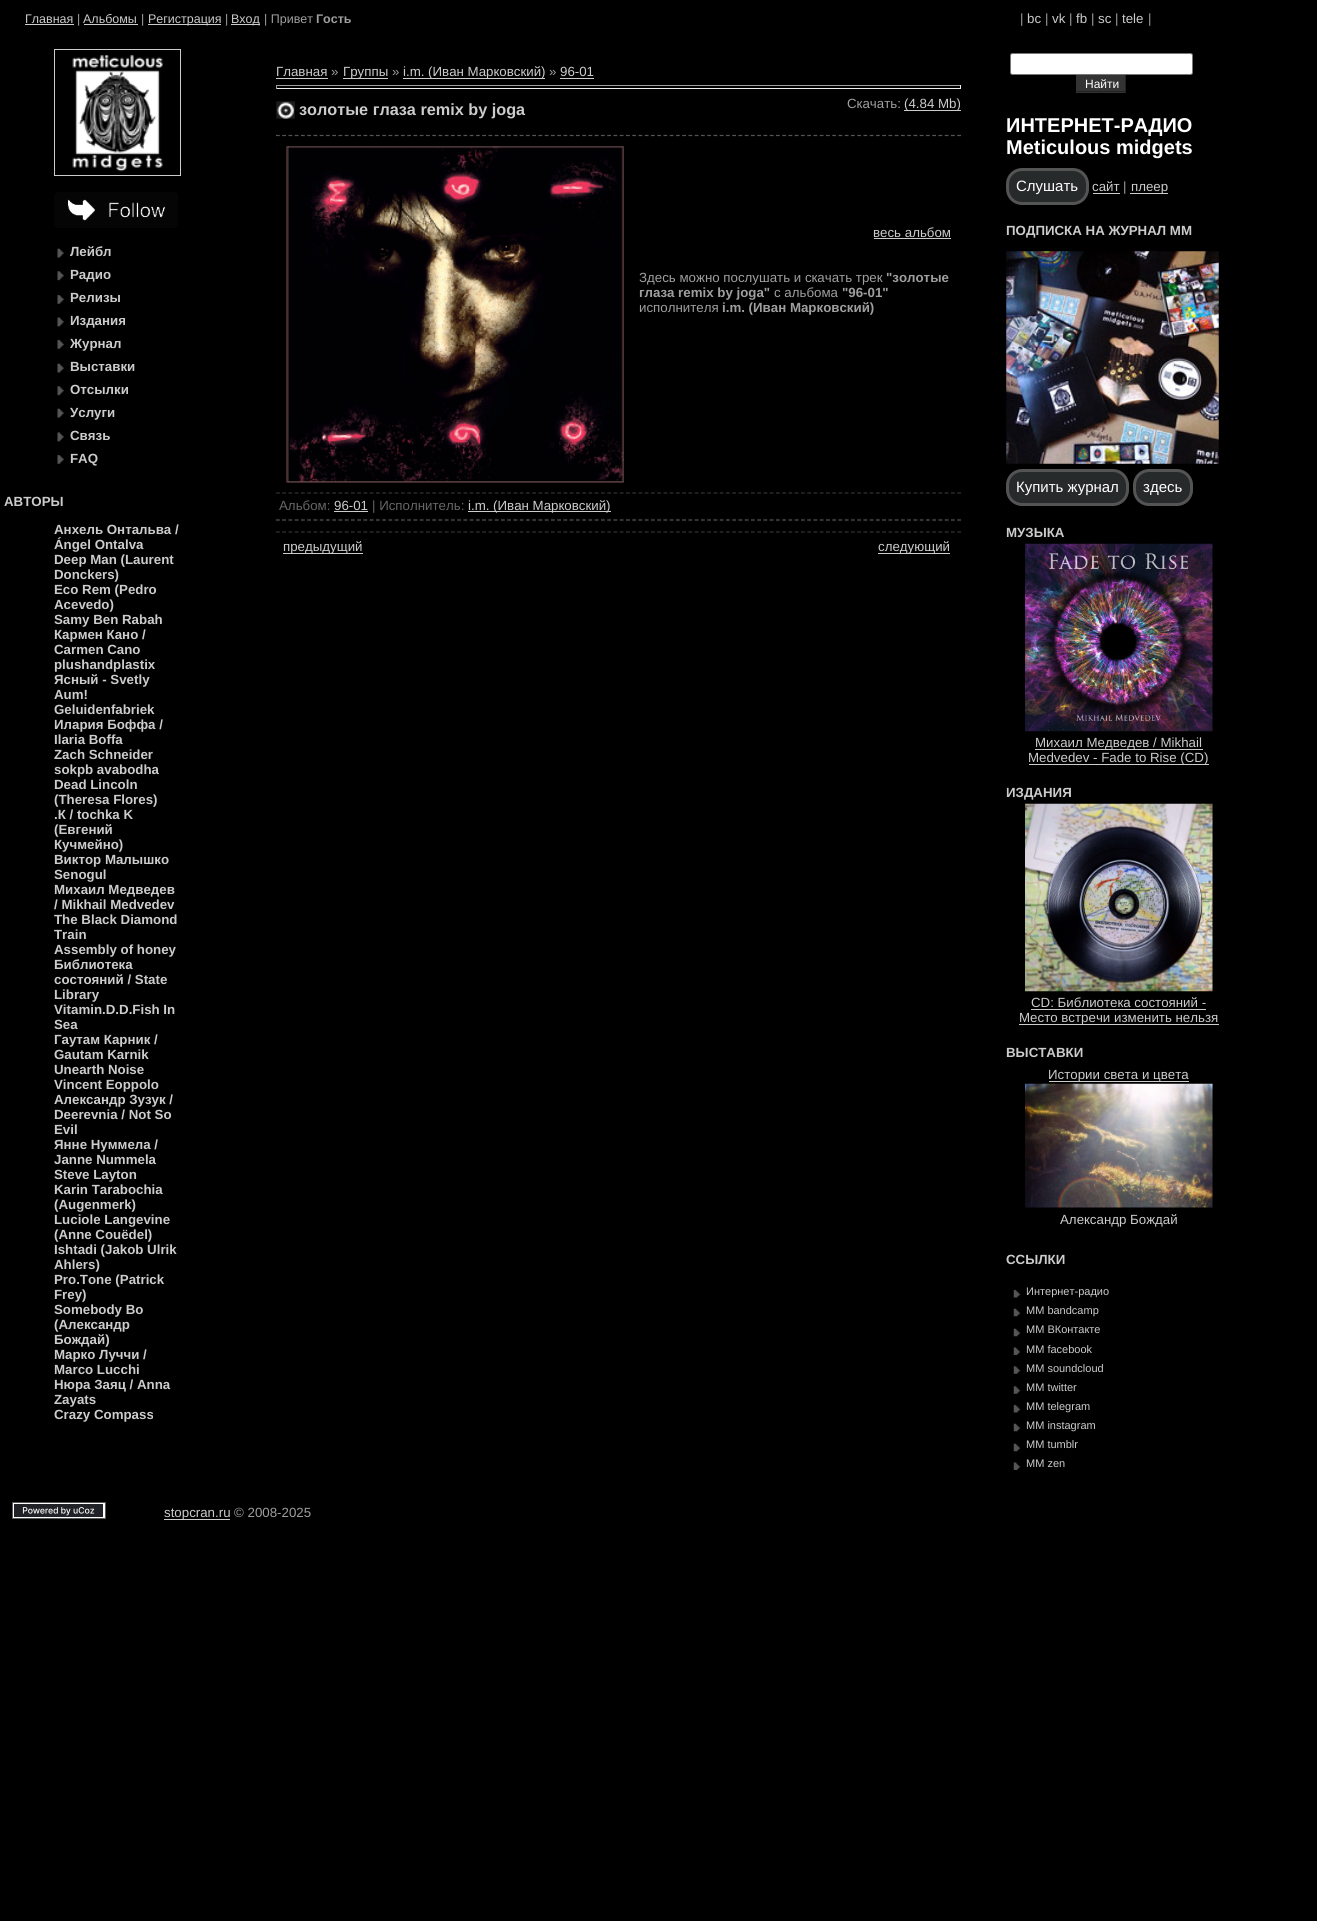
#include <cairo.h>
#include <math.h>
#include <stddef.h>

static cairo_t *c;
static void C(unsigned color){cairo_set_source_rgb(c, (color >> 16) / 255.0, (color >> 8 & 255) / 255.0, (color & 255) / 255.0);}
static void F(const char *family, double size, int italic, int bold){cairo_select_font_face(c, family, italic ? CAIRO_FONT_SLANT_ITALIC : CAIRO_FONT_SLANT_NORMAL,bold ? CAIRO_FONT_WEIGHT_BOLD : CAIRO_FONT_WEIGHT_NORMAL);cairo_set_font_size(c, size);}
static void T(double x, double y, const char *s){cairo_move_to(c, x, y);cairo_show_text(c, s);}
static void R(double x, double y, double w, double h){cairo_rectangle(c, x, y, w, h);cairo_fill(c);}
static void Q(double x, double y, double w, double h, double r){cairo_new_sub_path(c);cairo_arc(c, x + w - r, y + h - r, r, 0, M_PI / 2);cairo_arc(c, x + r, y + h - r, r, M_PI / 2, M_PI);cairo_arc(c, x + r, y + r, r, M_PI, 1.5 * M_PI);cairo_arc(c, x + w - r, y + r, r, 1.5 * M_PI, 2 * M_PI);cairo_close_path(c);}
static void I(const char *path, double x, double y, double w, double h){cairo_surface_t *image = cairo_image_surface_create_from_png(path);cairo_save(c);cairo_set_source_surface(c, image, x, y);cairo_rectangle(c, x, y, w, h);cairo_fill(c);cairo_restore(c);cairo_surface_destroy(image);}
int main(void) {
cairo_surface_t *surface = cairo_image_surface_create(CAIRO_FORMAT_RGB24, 1317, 1921);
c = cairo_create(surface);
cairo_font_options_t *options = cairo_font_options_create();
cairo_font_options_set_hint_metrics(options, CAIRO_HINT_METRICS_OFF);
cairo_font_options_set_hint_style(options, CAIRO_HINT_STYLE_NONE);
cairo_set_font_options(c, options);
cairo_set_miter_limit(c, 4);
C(0x000000);
cairo_paint(c);
F("Liberation Sans",12.5,0,0);
C(0xcccccc);
T(25,23,"Главная");
R(25,24,49,1);
C(0x9f9f9f);
T(77,23,"|");
C(0xcccccc);
T(83,23,"Альбомы");
R(84,24,54,1);
C(0x9f9f9f);
T(141,23,"|");
C(0xcccccc);
R(148,24,73,1);
T(148,23,"Регистрация");
C(0x9f9f9f);
T(225,23,"|");
C(0xcccccc);
R(231,24,29,1);
T(231,23,"Вход");
C(0x9f9f9f);
T(264,23,"| Привет");
F("Liberation Sans",12.5,0,1);
T(316,23,"Гость");
F("Liberation Sans",13.3,0,0);
T(1020,23,"|");
C(0xcccccc);
T(1027,23,"bc");
C(0x9f9f9f);
T(1045,23,"|");
C(0xcccccc);
T(1052,23,"vk");
C(0x9f9f9f);
T(1069,23,"|");
C(0xcccccc);
T(1076,23,"fb");
C(0x9f9f9f);
T(1091,23,"|");
C(0xcccccc);
T(1098,23,"sc");
C(0x9f9f9f);
T(1115,23,"|");
C(0xcccccc);
T(1122,23,"tele");
C(0x9f9f9f);
T(1148,23,"|");
cairo_rectangle(c,54.5,49.5,126,126);
C(0xcccccc);
cairo_set_line_width(c,1);
cairo_stroke(c);
I("1.png",72,54,91,118);
I("2.png",54,192,124,36);
I("3.png",57,248,7,10);
F("Liberation Sans",13.3,0,1);
T(70,256,"Лейбл");
I("4.png",57,271,7,10);
T(70,279,"Радио");
I("5.png",57,294,7,10);
T(70,302,"Релизы");
I("6.png",57,317,7,10);
T(70,325,"Издания");
I("7.png",57,339,7,10);
T(70,348,"Журнал");
I("3.png",57,363,7,10);
T(70,371,"Выставки");
I("4.png",57,386,7,10);
T(70,394,"Отсылки");
I("3.png",57,408,7,10);
T(70,417,"Услуги");
I("6.png",57,432,7,10);
T(70,440,"Связь");
I("7.png",57,454,7,10);
T(70,463,"FAQ");
T(4,506,"АВТОРЫ");
T(54,534,"Анхель Онтальва /");
T(54,549,"Ángel Ontalva");
T(54,564,"Deep Man (Laurent");
T(54,579,"Donckers)");
T(54,594,"Eco Rem (Pedro");
T(54,609,"Acevedo)");
T(54,624,"Samy Ben Rabah");
T(54,639,"Кармен Кано /");
T(54,654,"Carmen Cano");
T(54,669,"plushandplastix");
T(54,684,"Ясный - Svetly");
T(54,699,"Aum!");
T(54,714,"Geluidenfabriek");
T(54,729,"Илария Боффа /");
T(54,744,"Ilaria Boffa");
T(54,759,"Zach Schneider");
T(54,774,"sokpb avabodha");
T(54,789,"Dead Lincoln");
T(54,804,"(Theresa Flores)");
T(54,819,".К / tochka K");
T(54,834,"(Евгений");
T(54,849,"Кучмейно)");
T(54,864,"Виктор Малышко");
T(54,879,"Senogul");
T(54,894,"Михаил Медведев");
T(54,909,"/ Mikhail Medvedev");
T(54,924,"The Black Diamond");
T(54,939,"Train");
T(54,954,"Assembly of honey");
T(54,969,"Библиотека");
T(54,984,"состояний / State");
T(54,999,"Library");
T(54,1014,"Vitamin.D.D.Fish In");
T(54,1029,"Sea");
T(54,1044,"Гаутам Карник /");
T(54,1059,"Gautam Karnik");
T(54,1074,"Unearth Noise");
T(54,1089,"Vincent Eoppolo");
T(54,1104,"Александр Зузук /");
T(54,1119,"Deerevnia / Not So");
T(54,1134,"Evil");
T(54,1149,"Янне Нуммела /");
T(54,1164,"Janne Nummela");
T(54,1179,"Steve Layton");
T(54,1194,"Karin Tarabochia");
T(54,1209,"(Augenmerk)");
T(54,1224,"Luciole Langevine");
T(54,1239,"(Anne Couëdel)");
T(54,1254,"Ishtadi (Jakob Ulrik");
T(54,1269,"Ahlers)");
T(54,1284,"Pro.Tone (Patrick");
T(54,1299,"Frey)");
T(54,1314,"Somebody Bo");
T(54,1329,"(Александр");
T(54,1344,"Бождай)");
T(54,1359,"Марко Луччи /");
T(54,1374,"Marco Lucchi");
T(54,1389,"Нюра Заяц / Anna");
T(54,1404,"Zayats");
T(54,1419,"Crazy Compass");
F("Liberation Sans",13.3,0,0);
T(276,76,"Главная");
R(276,78,52,1);
C(0x9f9f9f);
T(331,76,"»");
C(0xcccccc);
R(343,78,45,1);
T(343,76,"Группы");
C(0x9f9f9f);
T(392,76,"»");
C(0xcccccc);
R(403,78,142,1);
T(403,76,"i.m. (Иван Марковский)");
C(0x9f9f9f);
T(549,76,"»");
C(0xcccccc);
T(560,76,"96-01");
R(560,78,34,1);
C(0x9f9f9f);
R(276,85,685,1);
C(0xeeeeee);
R(960,85,1,4);
R(276,88,685,1);
C(0x9f9f9f);
R(276,85,1,4);
I("8.png",276,101,19,18);
F("Liberation Sans",16.25,0,1);
C(0xcccccc);
T(299,115,"золотые глаза remix by joga");
F("Liberation Sans",13.3,0,0);
C(0x9f9f9f);
T(847,108,"Скачать:");
C(0xcccccc);
R(904,110,57,1);
T(904,108,"(4.84 Mb)");
cairo_new_path(c);
cairo_move_to(c,276,135.5);
cairo_line_to(c,961,135.5);
C(0x555555);
cairo_set_line_width(c,1.2);
cairo_set_dash(c,(double[]){3.75,2.5},2,0);
cairo_stroke(c);
I("9.png",286,146,338,337);
C(0xcccccc);
T(873,237,"весь альбом");
R(874,238,77,1);
C(0x9f9f9f);
T(639,282,"Здесь можно послушать и скачать трек");
F("Liberation Sans",13.3,0,1);
T(886,282,"\"золотые");
T(639,297,"глаза remix by joga\"");
F("Liberation Sans",13.3,0,0);
T(774,297,"с альбома");
F("Liberation Sans",13.3,0,1);
T(842,297,"\"96-01\"");
F("Liberation Sans",13.3,0,0);
T(639,312,"исполнителя");
F("Liberation Sans",13.3,0,1);
T(722,312,"i.m. (Иван Марковский)");
cairo_new_path(c);
cairo_move_to(c,276,493);
cairo_line_to(c,961,493);
C(0x333333);
cairo_stroke(c);
cairo_new_path(c);
cairo_move_to(c,276,519.5);
cairo_line_to(c,961,519.5);
cairo_stroke(c);
F("Liberation Sans",13.3,0,0);
C(0x666666);
T(279,510,"Альбом:");
C(0xcccccc);
T(334,510,"96-01");
R(334,511,34,1);
C(0x666666);
T(372,510,"| Исполнитель:");
C(0xcccccc);
R(468,511,143,1);
T(468,510,"i.m. (Иван Марковский)");
cairo_new_path(c);
cairo_move_to(c,276,520.5);
cairo_line_to(c,961,520.5);
C(0x333333);
cairo_stroke(c);
cairo_new_path(c);
cairo_move_to(c,276,532);
cairo_line_to(c,961,532);
cairo_stroke(c);
C(0xcccccc);
R(283,553,80,1);
T(283,551,"предыдущий");
R(878,553,72,1);
T(878,551,"следующий");
C(0xffffff);
Q(1010.5,53.5,182,21,2);
cairo_fill_preserve(c);
C(0x767676);
cairo_set_line_width(c,1);
cairo_set_dash(c,NULL,0,0);
cairo_stroke(c);
C(0x333333);
R(1077,75,48,18);
C(0x222222);
R(1125,75,1,18);
R(1076,91,50,1);
C(0x333333);
R(1076,75,1,18);
F("Liberation Sans",12,0,0);
C(0xffffff);
T(1085,88,"Найти");
F("Liberation Sans",20,0,1);
T(1006,132,"ИНТЕРНЕТ-РАДИО");
T(1006,154,"Meticulous midgets");
C(0x272a2b);
Q(1007.5,169.5,80,34,14.5);
cairo_fill_preserve(c);
C(0x545454);
cairo_set_line_width(c,3);
cairo_stroke(c);
F("Liberation Sans",15,0,0);
C(0xffffff);
T(1016,191,"Слушать");
F("Liberation Sans",13.3,0,0);
C(0xcccccc);
T(1092,191,"сайт");
R(1093,193,27,1);
C(0x9f9f9f);
T(1123,191,"|");
C(0xcccccc);
R(1130,193,38,1);
T(1131,191,"плеер");
F("Liberation Sans",13.3,0,1);
T(1006,235,"ПОДПИСКА НА ЖУРНАЛ ММ");
I("10.png",1006,251,213,213);
C(0x272a2b);
Q(1007.5,470.5,120,34,14.5);
cairo_fill_preserve(c);
C(0x545454);
cairo_stroke(c);
F("Liberation Sans",15,0,0);
C(0xffffff);
T(1016,492,"Купить журнал");
C(0x272a2b);
Q(1134.5,470.5,57,34,14.5);
cairo_fill_preserve(c);
C(0x545454);
cairo_stroke(c);
C(0xffffff);
T(1143,492,"здесь");
F("Liberation Sans",13.3,0,1);
C(0xcccccc);
T(1006,537,"МУЗЫКА");
I("11.png",1025,543,188,189);
R(1035,749,168,1);
F("Liberation Sans",13.3,0,0);
T(1035,747,"Михаил Медведев / Mikhail");
R(1029,764,180,1);
T(1028,762,"Medvedev - Fade to Rise (CD)");
F("Liberation Sans",13.3,0,1);
T(1006,797,"ИЗДАНИЯ");
I("12.png",1025,803,188,189);
F("Liberation Sans",13.3,0,0);
T(1031,1007,"CD: Библиотека состояний -");
R(1031,1009,175,1);
R(1019,1024,200,1);
T(1019,1022,"Место встречи изменить нельзя");
F("Liberation Sans",13.3,0,1);
T(1006,1057,"ВЫСТАВКИ");
R(1049,1081,140,1);
F("Liberation Sans",13.3,0,0);
T(1048,1079,"Истории света и цвета");
I("13.png",1025,1083,188,125);
T(1060,1224,"Александр Бождай");
F("Liberation Sans",13.3,0,1);
T(1006,1264,"ССЫЛКИ");
I("14.png",1013,1289,8,9);
F("Liberation Sans",11,0,0);
T(1026,1295,"Интернет-радио");
I("15.png",1013,1308,8,9);
T(1026,1314,"MM bandcamp");
I("15.png",1013,1328,8,9);
T(1026,1333,"MM ВКонтакте");
I("16.png",1013,1347,8,8);
T(1026,1353,"MM facebook");
I("17.png",1013,1366,8,8);
T(1026,1372,"MM soundcloud");
I("17.png",1013,1386,8,8);
T(1026,1391,"MM twitter");
I("14.png",1013,1404,8,9);
T(1026,1410,"MM telegram");
I("15.png",1013,1423,8,9);
T(1026,1429,"MM instagram");
I("15.png",1013,1443,8,9);
T(1026,1448,"MM tumblr");
I("16.png",1013,1462,8,8);
T(1026,1467,"MM zen");
I("18.png",12,1502,94,17);
R(164,1519,66,1);
F("Liberation Sans",13.3,0,0);
T(164,1517,"stopcran.ru");
C(0x9f9f9f);
T(234,1517,"© 2008-2025");
cairo_surface_write_to_png(surface, "o.png");
cairo_font_options_destroy(options);
cairo_destroy(c);
cairo_surface_destroy(surface);
return 0;
}
